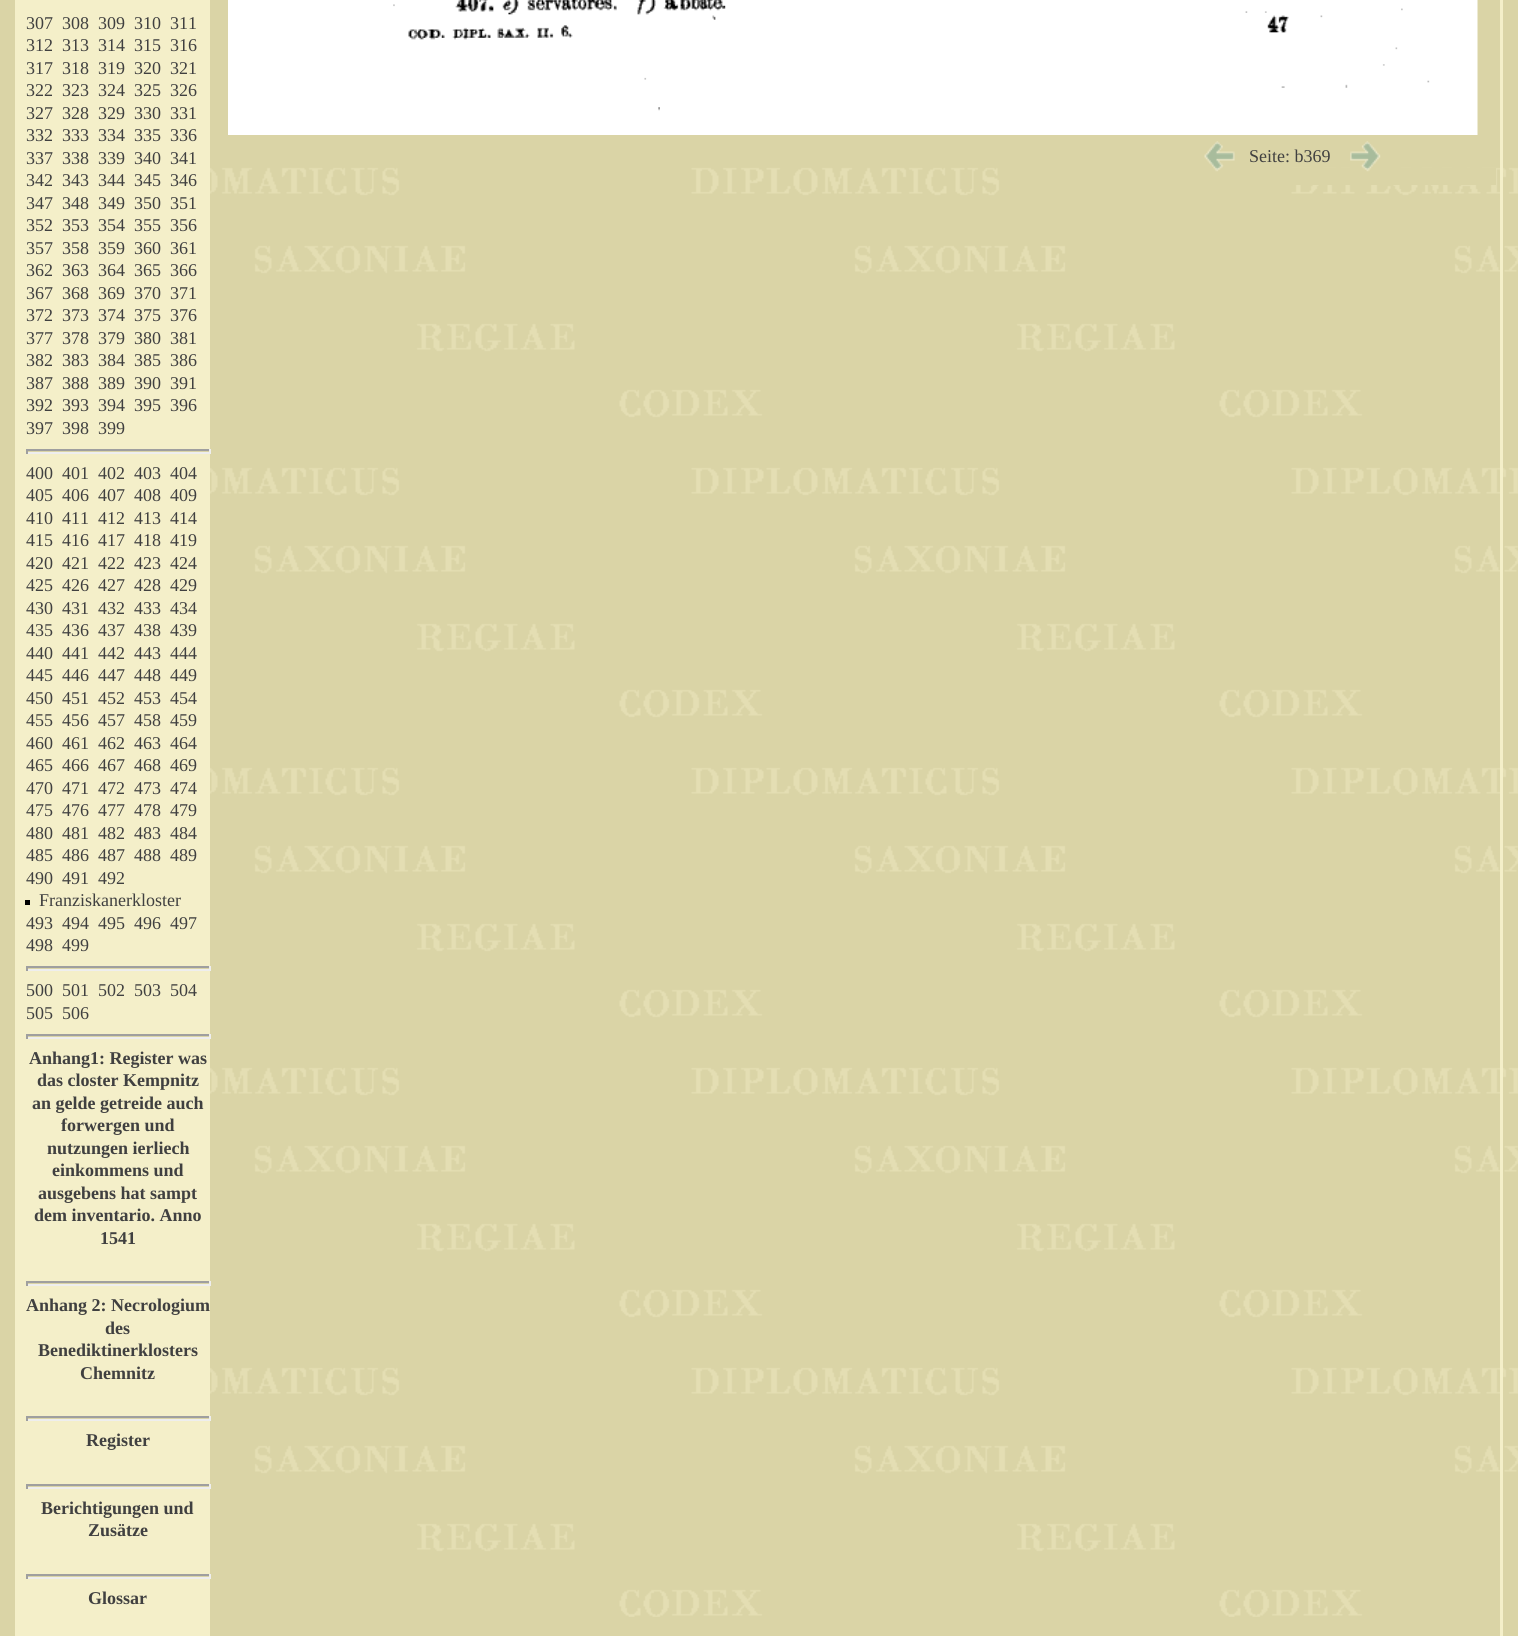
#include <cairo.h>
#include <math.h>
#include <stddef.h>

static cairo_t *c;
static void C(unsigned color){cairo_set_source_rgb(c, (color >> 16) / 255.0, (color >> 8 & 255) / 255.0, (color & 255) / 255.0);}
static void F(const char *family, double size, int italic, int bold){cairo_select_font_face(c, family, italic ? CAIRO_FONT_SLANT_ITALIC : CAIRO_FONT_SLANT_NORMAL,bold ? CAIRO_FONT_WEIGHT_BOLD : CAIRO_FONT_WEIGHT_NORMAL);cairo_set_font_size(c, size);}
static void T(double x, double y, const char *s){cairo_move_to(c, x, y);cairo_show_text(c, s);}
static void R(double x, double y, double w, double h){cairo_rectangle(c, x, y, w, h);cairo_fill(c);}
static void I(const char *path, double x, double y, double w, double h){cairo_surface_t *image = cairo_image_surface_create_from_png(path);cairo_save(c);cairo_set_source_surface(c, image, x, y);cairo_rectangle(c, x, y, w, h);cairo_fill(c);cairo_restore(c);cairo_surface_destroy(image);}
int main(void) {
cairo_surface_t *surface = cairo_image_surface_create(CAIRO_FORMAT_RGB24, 1518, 1636);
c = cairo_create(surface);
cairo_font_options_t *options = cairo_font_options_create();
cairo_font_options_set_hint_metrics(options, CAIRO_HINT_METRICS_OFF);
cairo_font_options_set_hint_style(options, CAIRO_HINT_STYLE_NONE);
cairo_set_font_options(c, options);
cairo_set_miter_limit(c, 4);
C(0xdad4a6);
cairo_paint(c);
I("1.png",210,24,1308,1593);
cairo_rectangle(c,16.5,-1.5,1485,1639);
C(0xf4efc9);
cairo_set_line_width(c,3);
cairo_stroke(c);
R(18,0,192,1636);
F("Liberation Serif",18,0,0);
C(0x404040);
T(26,29,"307");
T(62,29,"308");
T(98,29,"309");
T(134,29,"310");
T(170,29,"311");
T(26,51,"312");
T(62,51,"313");
T(98,51,"314");
T(134,51,"315");
T(170,51,"316");
T(26,74,"317");
T(62,74,"318");
T(98,74,"319");
T(134,74,"320");
T(170,74,"321");
T(26,96,"322");
T(62,96,"323");
T(98,96,"324");
T(134,96,"325");
T(170,96,"326");
T(26,119,"327");
T(62,119,"328");
T(98,119,"329");
T(134,119,"330");
T(170,119,"331");
T(26,141,"332");
T(62,141,"333");
T(98,141,"334");
T(134,141,"335");
T(170,141,"336");
T(26,164,"337");
T(62,164,"338");
T(98,164,"339");
T(134,164,"340");
T(170,164,"341");
T(26,186,"342");
T(62,186,"343");
T(98,186,"344");
T(134,186,"345");
T(170,186,"346");
T(26,209,"347");
T(62,209,"348");
T(98,209,"349");
T(134,209,"350");
T(170,209,"351");
T(26,231,"352");
T(62,231,"353");
T(98,231,"354");
T(134,231,"355");
T(170,231,"356");
T(26,254,"357");
T(62,254,"358");
T(98,254,"359");
T(134,254,"360");
T(170,254,"361");
T(26,276,"362");
T(62,276,"363");
T(98,276,"364");
T(134,276,"365");
T(170,276,"366");
T(26,299,"367");
T(62,299,"368");
T(98,299,"369");
T(134,299,"370");
T(170,299,"371");
T(26,321,"372");
T(62,321,"373");
T(98,321,"374");
T(134,321,"375");
T(170,321,"376");
T(26,344,"377");
T(62,344,"378");
T(98,344,"379");
T(134,344,"380");
T(170,344,"381");
T(26,366,"382");
T(62,366,"383");
T(98,366,"384");
T(134,366,"385");
T(170,366,"386");
T(26,389,"387");
T(62,389,"388");
T(98,389,"389");
T(134,389,"390");
T(170,389,"391");
T(26,411,"392");
T(62,411,"393");
T(98,411,"394");
T(134,411,"395");
T(170,411,"396");
T(26,434,"397");
T(62,434,"398");
T(98,434,"399");
C(0xdad4a6);
R(26,451,184,1);
C(0x9f9f9f);
R(26,449,184,2);
C(0xeeeeee);
R(209,449,2,5);
R(26,452,184,2);
C(0x9f9f9f);
R(26,449,2,5);
C(0x404040);
T(26,479,"400");
T(62,479,"401");
T(98,479,"402");
T(134,479,"403");
T(170,479,"404");
T(26,501,"405");
T(62,501,"406");
T(98,501,"407");
T(134,501,"408");
T(170,501,"409");
T(26,524,"410");
T(62,524,"411");
T(98,524,"412");
T(134,524,"413");
T(170,524,"414");
T(26,546,"415");
T(62,546,"416");
T(98,546,"417");
T(134,546,"418");
T(170,546,"419");
T(26,569,"420");
T(62,569,"421");
T(98,569,"422");
T(134,569,"423");
T(170,569,"424");
T(26,591,"425");
T(62,591,"426");
T(98,591,"427");
T(134,591,"428");
T(170,591,"429");
T(26,614,"430");
T(62,614,"431");
T(98,614,"432");
T(134,614,"433");
T(170,614,"434");
T(26,636,"435");
T(62,636,"436");
T(98,636,"437");
T(134,636,"438");
T(170,636,"439");
T(26,659,"440");
T(62,659,"441");
T(98,659,"442");
T(134,659,"443");
T(170,659,"444");
T(26,681,"445");
T(62,681,"446");
T(98,681,"447");
T(134,681,"448");
T(170,681,"449");
T(26,704,"450");
T(62,704,"451");
T(98,704,"452");
T(134,704,"453");
T(170,704,"454");
T(26,726,"455");
T(62,726,"456");
T(98,726,"457");
T(134,726,"458");
T(170,726,"459");
T(26,749,"460");
T(62,749,"461");
T(98,749,"462");
T(134,749,"463");
T(170,749,"464");
T(26,771,"465");
T(62,771,"466");
T(98,771,"467");
T(134,771,"468");
T(170,771,"469");
T(26,794,"470");
T(62,794,"471");
T(98,794,"472");
T(134,794,"473");
T(170,794,"474");
T(26,816,"475");
T(62,816,"476");
T(98,816,"477");
T(134,816,"478");
T(170,816,"479");
T(26,839,"480");
T(62,839,"481");
T(98,839,"482");
T(134,839,"483");
T(170,839,"484");
T(26,861,"485");
T(62,861,"486");
T(98,861,"487");
T(134,861,"488");
T(170,861,"489");
T(26,884,"490");
T(62,884,"491");
T(98,884,"492");
C(0x000000);
R(25,900,5,5);
C(0x404040);
T(39,906,"Franziskanerkloster");
T(26,929,"493");
T(62,929,"494");
T(98,929,"495");
T(134,929,"496");
T(170,929,"497");
T(26,951,"498");
T(62,951,"499");
C(0xdad4a6);
R(26,968,184,1);
C(0x9f9f9f);
R(26,966,184,2);
C(0xeeeeee);
R(209,966,2,5);
R(26,969,184,2);
C(0x9f9f9f);
R(26,966,2,5);
C(0x404040);
T(26,996,"500");
T(62,996,"501");
T(98,996,"502");
T(134,996,"503");
T(170,996,"504");
T(26,1019,"505");
T(62,1019,"506");
C(0xdad4a6);
R(26,1036,184,1);
C(0x9f9f9f);
R(26,1034,184,2);
C(0xeeeeee);
R(209,1034,2,5);
R(26,1037,184,2);
C(0x9f9f9f);
R(26,1034,2,5);
F("Liberation Serif",18,0,1);
C(0x404040);
T(29,1064,"Anhang1: Register was");
T(37,1086,"das closter Kempnitz");
T(32,1109,"an gelde getreide auch");
T(61,1131,"forwergen und");
T(47,1154,"nutzungen ierliech");
T(52,1176,"einkommens und");
T(38,1199,"ausgebens hat sampt");
T(34,1221,"dem inventario. Anno");
T(100,1244,"1541");
C(0xdad4a6);
R(26,1283,184,1);
C(0x9f9f9f);
R(26,1281,184,2);
C(0xeeeeee);
R(209,1281,2,5);
R(26,1284,184,2);
C(0x9f9f9f);
R(26,1281,2,5);
C(0x404040);
T(26,1311,"Anhang 2: Necrologium");
T(105,1334,"des");
T(38,1356,"Benediktinerklosters");
T(80,1379,"Chemnitz");
C(0xdad4a6);
R(26,1418,184,1);
C(0x9f9f9f);
R(26,1416,184,2);
C(0xeeeeee);
R(209,1416,2,5);
R(26,1419,184,2);
C(0x9f9f9f);
R(26,1416,2,5);
C(0x404040);
T(86,1446,"Register");
C(0xdad4a6);
R(26,1486,184,1);
C(0x9f9f9f);
R(26,1484,184,2);
C(0xeeeeee);
R(209,1484,2,5);
R(26,1487,184,2);
C(0x9f9f9f);
R(26,1484,2,5);
C(0x404040);
T(41,1514,"Berichtigungen und");
T(88,1536,"Zusätze");
C(0xdad4a6);
R(26,1576,184,1);
C(0x9f9f9f);
R(26,1574,184,2);
C(0xeeeeee);
R(209,1574,2,5);
R(26,1577,184,2);
C(0x9f9f9f);
R(26,1574,2,5);
C(0x404040);
T(88,1604,"Glossar");
I("2.png",228,0,1250,135);
C(0xdad4a6);
R(1291,168,205,17);
I("3.png",1204,141,31,31);
F("Liberation Serif",18,0,0);
C(0x404040);
T(1249,162,"Seite: b369");
I("4.png",1350,141,31,31);
cairo_surface_write_to_png(surface, "o.png");
cairo_font_options_destroy(options);
cairo_destroy(c);
cairo_surface_destroy(surface);
return 0;
}
